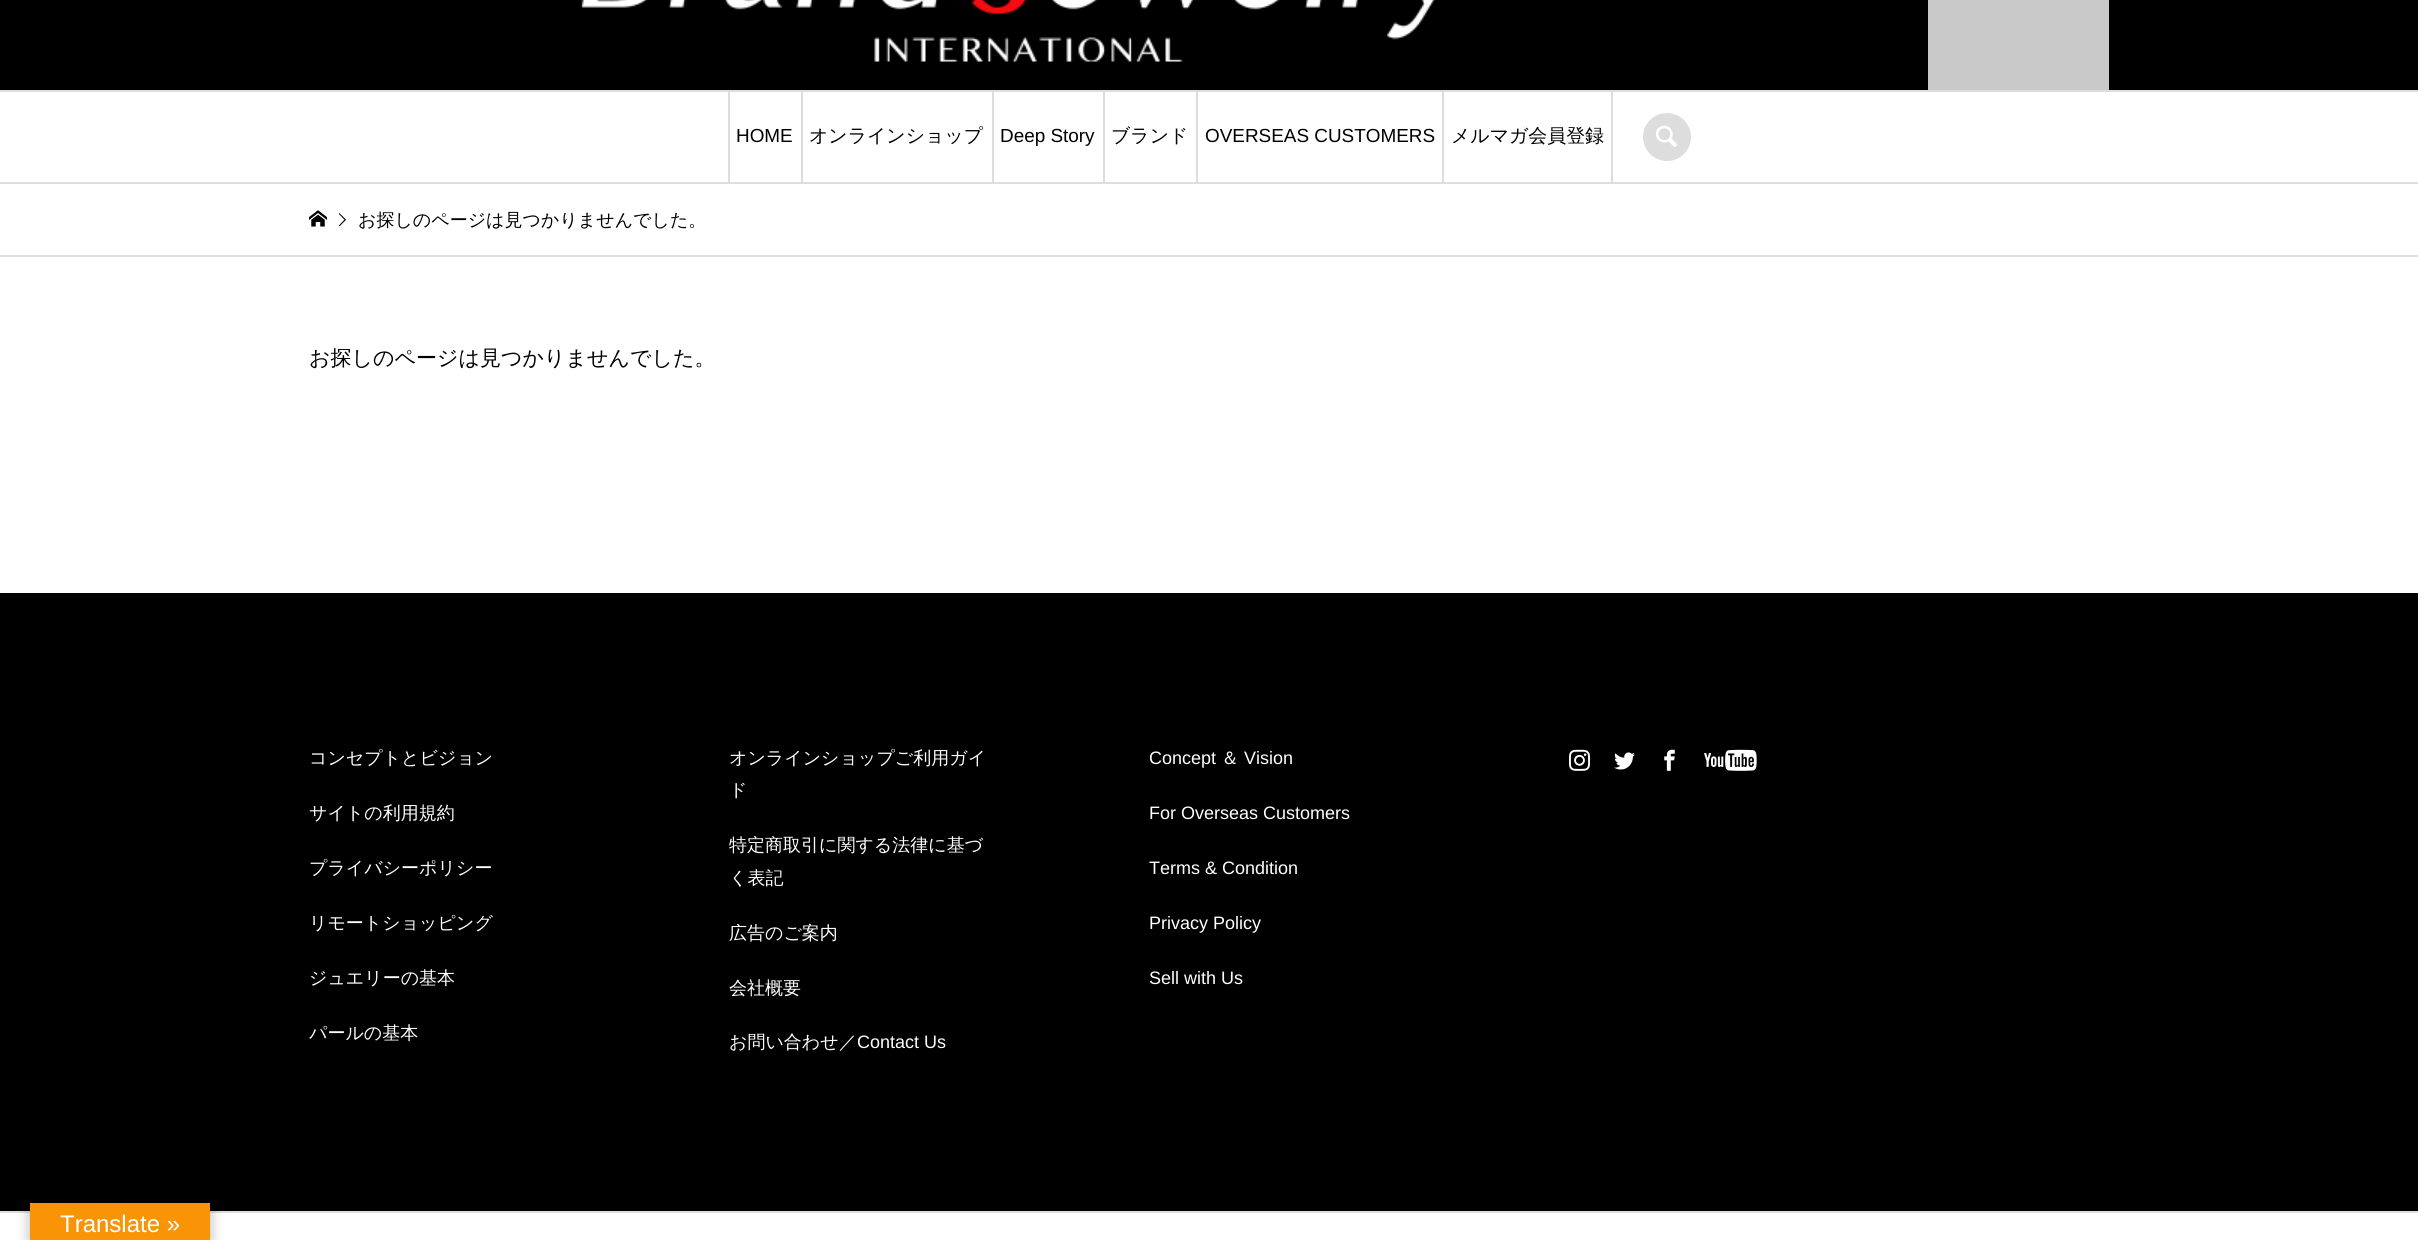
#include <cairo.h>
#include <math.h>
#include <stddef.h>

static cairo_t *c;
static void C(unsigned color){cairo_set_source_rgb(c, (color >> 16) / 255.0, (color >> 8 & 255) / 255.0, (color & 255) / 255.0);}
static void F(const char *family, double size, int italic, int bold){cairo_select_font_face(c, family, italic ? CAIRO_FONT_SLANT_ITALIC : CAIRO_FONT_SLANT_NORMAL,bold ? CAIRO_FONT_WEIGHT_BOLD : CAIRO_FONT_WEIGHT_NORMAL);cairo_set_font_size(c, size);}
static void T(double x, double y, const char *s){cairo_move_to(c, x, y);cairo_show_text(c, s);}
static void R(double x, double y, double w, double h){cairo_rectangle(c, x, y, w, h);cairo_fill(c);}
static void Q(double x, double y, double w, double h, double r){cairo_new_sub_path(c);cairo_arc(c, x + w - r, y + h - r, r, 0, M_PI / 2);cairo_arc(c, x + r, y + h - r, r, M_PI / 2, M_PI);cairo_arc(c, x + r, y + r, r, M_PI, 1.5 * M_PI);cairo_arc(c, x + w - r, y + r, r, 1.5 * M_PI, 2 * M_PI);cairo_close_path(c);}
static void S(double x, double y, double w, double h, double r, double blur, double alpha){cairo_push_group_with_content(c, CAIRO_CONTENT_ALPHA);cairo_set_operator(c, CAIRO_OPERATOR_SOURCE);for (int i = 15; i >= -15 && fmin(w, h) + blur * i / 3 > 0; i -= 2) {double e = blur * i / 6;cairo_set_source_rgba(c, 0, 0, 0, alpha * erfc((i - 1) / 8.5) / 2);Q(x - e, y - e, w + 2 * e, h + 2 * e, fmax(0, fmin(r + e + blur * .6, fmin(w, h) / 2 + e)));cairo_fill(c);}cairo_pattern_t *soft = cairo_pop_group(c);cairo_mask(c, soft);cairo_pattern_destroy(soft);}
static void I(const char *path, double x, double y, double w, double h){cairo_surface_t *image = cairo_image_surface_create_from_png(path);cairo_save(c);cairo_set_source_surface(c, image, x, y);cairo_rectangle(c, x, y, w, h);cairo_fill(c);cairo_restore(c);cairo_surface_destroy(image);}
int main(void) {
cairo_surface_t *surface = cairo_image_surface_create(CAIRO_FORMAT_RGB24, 2418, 1240);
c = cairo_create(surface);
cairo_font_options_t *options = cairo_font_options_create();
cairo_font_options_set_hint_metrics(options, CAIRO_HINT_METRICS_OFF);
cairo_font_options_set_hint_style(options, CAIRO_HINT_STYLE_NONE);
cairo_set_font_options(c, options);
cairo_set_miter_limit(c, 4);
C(0xffffff);
cairo_paint(c);
C(0x000000);
R(0,0,2418,90);
C(0xdddddd);
R(0,90,2418,2);
I("1.png",581,0,854,63);
C(0xc9c9c9);
R(1928,0,181,90);
C(0xdddddd);
R(0,182,2418,2);
R(728,92,2,90);
R(801,92,2,90);
F("Liberation Sans",18.9,0,0);
C(0x000000);
T(736,142,"HOME");
C(0xdddddd);
R(992,92,2,90);
F("WenQuanYi Zen Hei Medium",18.9,0,0);
C(0x000000);
T(809,142,"オンラインショップ");
C(0xdddddd);
R(1103,92,2,90);
F("Liberation Sans",18.9,0,0);
C(0x000000);
T(1000,142,"Deep Story");
C(0xdddddd);
R(1196,92,2,90);
F("WenQuanYi Zen Hei Medium",18.9,0,0);
C(0x000000);
T(1111,142,"ブランド");
C(0xdddddd);
R(1442,92,2,90);
F("Liberation Sans",18.9,0,0);
C(0x000000);
T(1205,142,"OVERSEAS CUSTOMERS");
C(0xdddddd);
R(1611,92,2,90);
F("WenQuanYi Zen Hei Medium",18.9,0,0);
C(0x000000);
T(1451,142,"メルマガ会員登録");
C(0xdddddd);
cairo_new_path(c);
cairo_arc(c,1667,137,24,0,2 * M_PI);
cairo_fill(c);
I("2.png",1656,125,21,22);
R(0,255,2418,2);
I("3.png",309,210,18,17);
I("4.png",339,213,7,14);
F("WenQuanYi Zen Hei Medium",18,0,0);
C(0x000000);
T(358,226,"お探しのページは見つかりませんでした。");
F("WenQuanYi Zen Hei Medium",21,0,0);
T(309,365,"お探しのページは見つかりませんでした。");
R(0,593,2418,618);
F("WenQuanYi Zen Hei Medium",18,0,0);
C(0xffffff);
T(309,764,"コンセプトとビジョン");
T(309,819,"サイトの利用規約");
T(309,874,"プライバシーポリシー");
T(309,929,"リモートショッピング");
T(309,984,"ジュエリーの基本");
T(309,1039,"パールの基本");
T(729,764,"オンラインショップご利用ガイ");
T(729,796,"ド");
T(729,851,"特定商取引に関する法律に基づ");
T(729,884,"く表記");
T(729,939,"広告のご案内");
T(729,994,"会社概要");
T(729,1048,"お問い合わせ／");
F("Liberation Sans",18,0,0);
T(857,1048,"Contact Us");
T(1149,764,"Concept");
F("WenQuanYi Zen Hei Medium",18,0,0);
T(1221,764,"＆");
F("Liberation Sans",18,0,0);
T(1244,764,"Vision");
T(1149,819,"For Overseas Customers");
T(1149,874,"Terms & Condition");
T(1149,929,"Privacy Policy");
T(1149,984,"Sell with Us");
I("5.png",1569,749,21,22);
I("6.png",1614,752,21,18);
I("7.png",1664,749,11,22);
I("8.png",1704,749,53,22);
C(0xdddddd);
R(0,1211,2418,2);
C(0x000000);
S(30,1203,180,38,0,7,.3);
C(0xf89406);
R(30,1203,180,37);
F("Liberation Sans",24,0,0);
C(0xffffff);
T(60,1232,"Translate »");
cairo_surface_write_to_png(surface, "o.png");
cairo_font_options_destroy(options);
cairo_destroy(c);
cairo_surface_destroy(surface);
return 0;
}
